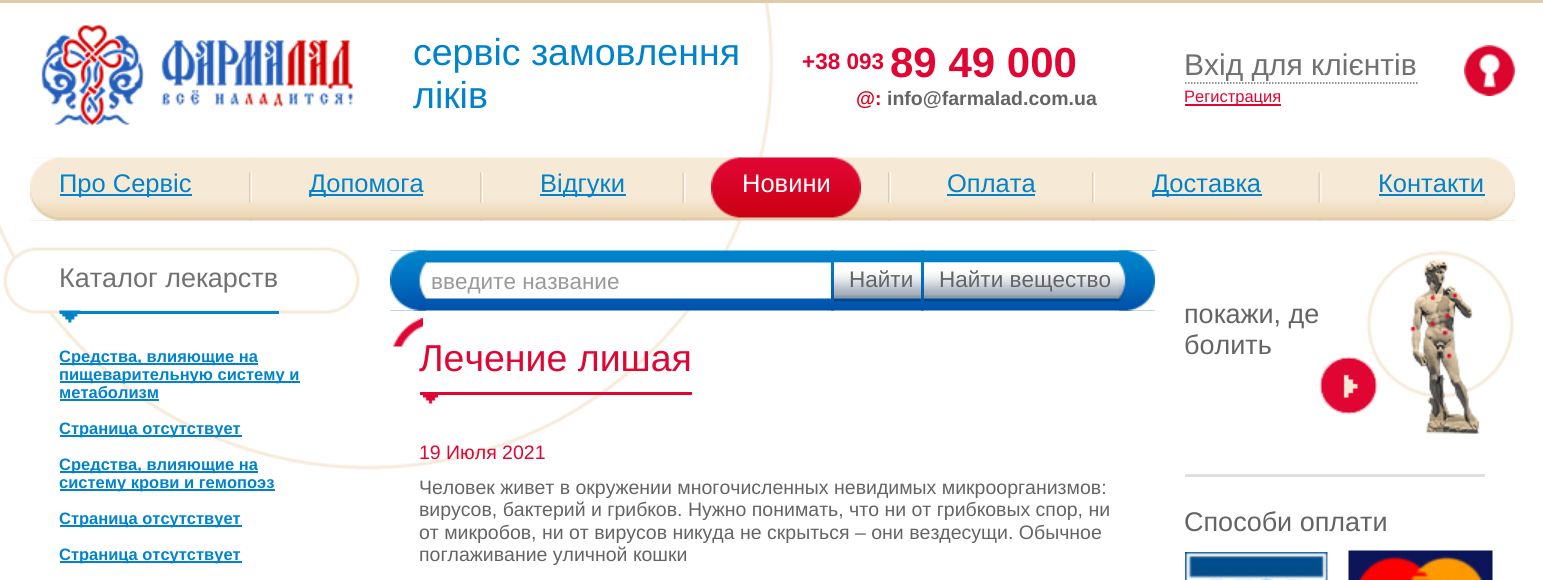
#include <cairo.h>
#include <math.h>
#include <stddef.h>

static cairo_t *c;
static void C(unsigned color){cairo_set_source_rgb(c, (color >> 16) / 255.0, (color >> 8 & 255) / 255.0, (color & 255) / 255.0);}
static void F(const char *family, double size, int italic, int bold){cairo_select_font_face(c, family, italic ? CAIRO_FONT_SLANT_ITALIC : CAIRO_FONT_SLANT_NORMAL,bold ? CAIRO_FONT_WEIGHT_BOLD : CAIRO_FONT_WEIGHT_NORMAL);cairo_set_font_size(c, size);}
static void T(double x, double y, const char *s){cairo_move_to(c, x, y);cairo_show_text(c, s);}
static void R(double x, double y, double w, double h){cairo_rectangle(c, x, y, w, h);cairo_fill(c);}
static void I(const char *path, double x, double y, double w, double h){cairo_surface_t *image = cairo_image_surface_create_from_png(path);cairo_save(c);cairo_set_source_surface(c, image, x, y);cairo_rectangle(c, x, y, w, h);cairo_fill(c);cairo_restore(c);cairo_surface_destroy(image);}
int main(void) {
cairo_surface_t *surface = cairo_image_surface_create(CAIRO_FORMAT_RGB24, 1543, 580);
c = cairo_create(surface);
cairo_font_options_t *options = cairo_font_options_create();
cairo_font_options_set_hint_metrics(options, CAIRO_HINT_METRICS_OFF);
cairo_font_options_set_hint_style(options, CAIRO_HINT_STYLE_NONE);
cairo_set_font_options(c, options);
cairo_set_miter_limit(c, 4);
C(0xffffff);
cairo_paint(c);
I("1.png",0,3,774,467);
C(0xe1cba9);
R(0,0,1543,3);
I("2.png",41,25,312,100);
F("Liberation Sans",37.5,0,0);
C(0x0083cb);
T(413,65,"сервіс замовлення");
T(413,108,"ліків");
F("Liberation Sans",22.5,0,1);
C(0xe00533);
T(802,69,"+38 093");
F("Liberation Sans",42,0,1);
T(890,77,"89 49 000");
F("Liberation Sans",19.5,0,1);
C(0xe2001a);
T(856,105,"@:");
C(0x646464);
T(887,105,"info@farmalad.com.ua");
I("3.png",1464,45,51,51);
cairo_new_path(c);
cairo_move_to(c,1185,83);
cairo_line_to(c,1417.5,83);
C(0x717171);
cairo_set_line_width(c,1.5);
cairo_set_dash(c,(double[]){1.5,1.5},2,0);
cairo_stroke(c);
F("Liberation Sans",30,0,0);
T(1184,75,"Вхід для клієнтів");
C(0xe00533);
R(1185,104,96,2);
F("Liberation Sans",16.5,0,0);
T(1184,102,"Pегистрация");
I("4.png",30,157,1485,64);
I("5.png",1485,157,30,64);
I("6.png",30,157,32,64);
C(0x0083cb);
R(60,194,132,2);
F("Liberation Sans",25.5,0,0);
T(59,192,"Про Сервіс");
I("7.png",249,157,3,64);
R(309,194,114,2);
T(309,192,"Допомога");
I("8.png",480,157,3,64);
R(540,194,86,2);
T(540,192,"Відгуки");
I("9.png",682,157,4,64);
I("10.png",711,157,27,61);
I("11.png",738,157,96,61);
C(0xffffff);
T(742,192,"Новини");
I("12.png",834,157,27,61);
I("7.png",888,157,3,64);
C(0x0083cb);
T(947,192,"Оплата");
R(947,194,88,2);
I("8.png",1092,157,3,64);
R(1152,194,110,2);
T(1152,192,"Доставка");
I("9.png",1318,157,4,64);
T(1378,192,"Контакти");
R(1379,194,106,2);
R(60,311,219,3);
F("Liberation Sans",27,0,0);
C(0x717171);
T(59,287,"Каталог лекарств");
C(0x0083cb);
R(60,363,198,2);
F("Liberation Sans",16.5,0,1);
T(59,362,"Средства, влияющие на");
R(60,381,240,2);
T(59,380,"пищеварительную систему и");
T(59,398,"метаболизм");
R(60,399,99,2);
R(60,435,182,2);
T(59,434,"Страница отсутствует");
R(60,471,198,2);
T(59,470,"Средства, влияющие на");
R(60,489,215,2);
T(59,488,"систему крови и гемопоэз");
R(60,525,182,2);
T(59,524,"Страница отсутствует");
R(60,561,182,2);
T(59,560,"Страница отсутствует");
I("13.png",390,250,765,61);
I("14.png",390,250,36,61);
I("15.png",1119,250,36,61);
F("Liberation Sans",22.5,0,0);
C(0x999999);
T(431,289,"введите название");
I("16.png",831,250,3,61);
I("17.png",834,262,87,40);
C(0x646464);
T(849,287,"Найти");
I("16.png",921,250,3,61);
I("18.png",924,262,195,40);
T(939,287,"Найти вещество");
I("19.png",393,318,30,29);
C(0xe00533);
R(420,392,272,3);
F("Liberation Sans",37.5,0,0);
T(419,371,"Лечение лишая");
I("20.png",423,395,15,9);
F("Liberation Sans",19.5,0,0);
T(419,459,"19 Июля 2021");
C(0x646464);
T(419,494,"Человек живет в окружении многочисленных невидимых микроорганизмов:");
T(419,516,"вирусов, бактерий и грибков. Нужно понимать, что ни от грибковых спор, ни");
T(419,539,"от микробов, ни от вирусов никуда не скрыться – они вездесущи. Обычное");
T(419,561,"поглаживание уличной кошки");
I("21.png",1319,250,195,184);
F("Liberation Sans",27,0,0);
T(1184,323,"покажи, де");
T(1184,354,"болить");
C(0xdfdfdf);
R(1185,474,300,3);
C(0x646464);
T(1184,531,"Способи оплати");
I("22.png",1185,552,143,28);
I("23.png",1348,550,145,30);
cairo_surface_write_to_png(surface, "o.png");
cairo_font_options_destroy(options);
cairo_destroy(c);
cairo_surface_destroy(surface);
return 0;
}
